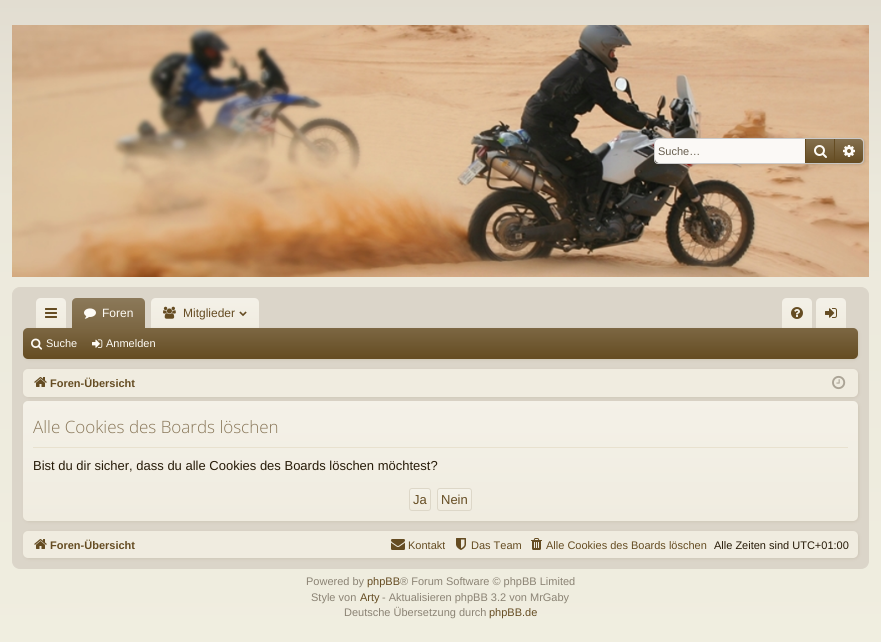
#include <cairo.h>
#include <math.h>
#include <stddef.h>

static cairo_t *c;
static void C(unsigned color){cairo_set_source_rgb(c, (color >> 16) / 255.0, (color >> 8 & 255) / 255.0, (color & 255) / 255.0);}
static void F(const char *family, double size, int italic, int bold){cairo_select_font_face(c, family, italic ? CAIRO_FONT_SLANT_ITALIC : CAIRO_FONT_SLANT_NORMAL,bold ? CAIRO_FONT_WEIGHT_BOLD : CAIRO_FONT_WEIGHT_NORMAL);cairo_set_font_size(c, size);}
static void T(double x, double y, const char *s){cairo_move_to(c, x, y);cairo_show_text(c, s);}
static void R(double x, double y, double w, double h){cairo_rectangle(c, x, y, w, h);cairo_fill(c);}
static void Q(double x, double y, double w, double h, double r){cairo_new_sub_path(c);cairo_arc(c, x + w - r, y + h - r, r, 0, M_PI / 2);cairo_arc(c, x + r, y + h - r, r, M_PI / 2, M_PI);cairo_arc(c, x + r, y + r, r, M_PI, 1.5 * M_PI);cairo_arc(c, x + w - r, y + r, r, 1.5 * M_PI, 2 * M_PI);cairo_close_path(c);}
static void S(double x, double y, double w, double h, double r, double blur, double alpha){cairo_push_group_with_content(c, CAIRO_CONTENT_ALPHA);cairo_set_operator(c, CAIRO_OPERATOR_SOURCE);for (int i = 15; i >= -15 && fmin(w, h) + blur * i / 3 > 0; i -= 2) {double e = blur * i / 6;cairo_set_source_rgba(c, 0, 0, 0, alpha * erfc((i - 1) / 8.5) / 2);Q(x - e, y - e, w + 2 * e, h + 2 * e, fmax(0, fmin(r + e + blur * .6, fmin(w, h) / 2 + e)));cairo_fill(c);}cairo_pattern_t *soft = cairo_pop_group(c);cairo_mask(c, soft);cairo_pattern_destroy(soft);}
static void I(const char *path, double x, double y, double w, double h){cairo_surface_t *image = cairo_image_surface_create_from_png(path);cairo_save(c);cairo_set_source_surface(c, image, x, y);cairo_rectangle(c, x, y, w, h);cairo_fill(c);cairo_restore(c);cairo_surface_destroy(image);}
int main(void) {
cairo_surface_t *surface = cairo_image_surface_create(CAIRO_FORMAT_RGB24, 881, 642);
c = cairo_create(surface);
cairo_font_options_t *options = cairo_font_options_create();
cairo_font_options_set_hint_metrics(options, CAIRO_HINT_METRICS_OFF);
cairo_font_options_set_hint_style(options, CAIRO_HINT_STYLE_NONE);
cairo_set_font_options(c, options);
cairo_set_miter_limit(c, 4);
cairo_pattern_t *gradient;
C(0xffffff);
cairo_paint(c);
gradient = cairo_pattern_create_linear(440,0,441,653);
cairo_pattern_add_color_stop_rgba(gradient,0,0.886,0.867,0.82,1);
cairo_pattern_add_color_stop_rgba(gradient,.31,0.925,0.914,0.863,1);
cairo_pattern_add_color_stop_rgba(gradient,1,0.941,0.933,0.878,1);
cairo_set_source(c,gradient);
cairo_pattern_destroy(gradient);
R(0,0,881,642);
I("1.png",12,25,857,252);
C(0x000000);
S(655,139,210,26,4,1.5,.1);
Q(654.5,138.5,209,25,3.5);
C(0xcccccc);
cairo_set_line_width(c,1);
cairo_stroke(c);
C(0xfbf9f6);
cairo_new_path(c);
cairo_move_to(c,659,139);
cairo_line_to(c,805,139);
cairo_line_to(c,805,163);
cairo_line_to(c,659,163);
cairo_curve_to(c,657,163,655,161,655,159);
cairo_line_to(c,655,143);
cairo_curve_to(c,655,141,657,139,659,139);
cairo_close_path(c);
cairo_fill(c);
F("Liberation Sans",11,0,0);
C(0x675e4f);
T(658,155,"Suche…");
C(0x654c22);
S(806,140,30,24,0,1.5,.1);
gradient = cairo_pattern_create_linear(820,139,820,163);
cairo_pattern_add_color_stop_rgba(gradient,0,0.518,0.439,0.306,1);
cairo_pattern_add_color_stop_rgba(gradient,1,0.396,0.298,0.133,1);
cairo_set_source(c,gradient);
cairo_pattern_destroy(gradient);
R(806,139,28,24);
C(0x654c22);
R(834,139,1,24);
R(805,139,1,24);
I("2.png",814,145,13,13);
C(0x654c22);
S(836,140,28,24,4,1.5,.1);
C(0x654c22);
cairo_new_path(c);
cairo_move_to(c,835,139);
cairo_line_to(c,859,139);
cairo_curve_to(c,861,139,863,141,863,143);
cairo_line_to(c,863,159);
cairo_curve_to(c,863,161,861,163,859,163);
cairo_line_to(c,835,163);
cairo_close_path(c);
cairo_fill(c);
gradient = cairo_pattern_create_linear(849,139,849,163);
cairo_pattern_add_color_stop_rgba(gradient,0,1,1,1,.2);
cairo_pattern_add_color_stop_rgba(gradient,1,1,1,1,0);
cairo_set_source(c,gradient);
cairo_pattern_destroy(gradient);
cairo_new_path(c);
cairo_move_to(c,835,139);
cairo_line_to(c,859,139);
cairo_curve_to(c,861,139,863,141,863,143);
cairo_line_to(c,863,159);
cairo_curve_to(c,863,161,861,163,859,163);
cairo_line_to(c,835,163);
cairo_close_path(c);
cairo_fill(c);
I("3.png",843,145,12,12);
C(0xdbd5c9);
Q(12.5,287.5,856,281,7.5);
cairo_fill_preserve(c);
cairo_stroke(c);
C(0xf0ece0);
cairo_new_path(c);
cairo_move_to(c,41,298);
cairo_line_to(c,61,298);
cairo_curve_to(c,64,298,66,300,66,303);
cairo_line_to(c,66,328);
cairo_line_to(c,36,328);
cairo_line_to(c,36,303);
cairo_curve_to(c,36,300,38,298,41,298);
cairo_close_path(c);
cairo_fill(c);
gradient = cairo_pattern_create_linear(51,298,51,328);
cairo_pattern_add_color_stop_rgba(gradient,0,1,1,1,.25);
cairo_pattern_add_color_stop_rgba(gradient,1,1,1,1,0);
cairo_set_source(c,gradient);
cairo_pattern_destroy(gradient);
cairo_new_path(c);
cairo_move_to(c,41,298);
cairo_line_to(c,61,298);
cairo_curve_to(c,64,298,66,300,66,303);
cairo_line_to(c,66,328);
cairo_line_to(c,36,328);
cairo_line_to(c,36,303);
cairo_curve_to(c,36,300,38,298,41,298);
cairo_close_path(c);
cairo_fill(c);
I("4.png",45,308,12,10);
C(0x654c22);
cairo_new_path(c);
cairo_move_to(c,77,298);
cairo_line_to(c,140,298);
cairo_curve_to(c,143,298,145,300,145,303);
cairo_line_to(c,145,328);
cairo_line_to(c,72,328);
cairo_line_to(c,72,303);
cairo_curve_to(c,72,300,74,298,77,298);
cairo_close_path(c);
cairo_fill(c);
gradient = cairo_pattern_create_linear(109,298,109,328);
cairo_pattern_add_color_stop_rgba(gradient,0,1,1,1,.25);
cairo_pattern_add_color_stop_rgba(gradient,1,1,1,1,.15);
cairo_set_source(c,gradient);
cairo_pattern_destroy(gradient);
cairo_new_path(c);
cairo_move_to(c,77,298);
cairo_line_to(c,140,298);
cairo_curve_to(c,143,298,145,300,145,303);
cairo_line_to(c,145,328);
cairo_line_to(c,72,328);
cairo_line_to(c,72,303);
cairo_curve_to(c,72,300,74,298,77,298);
cairo_close_path(c);
cairo_fill(c);
I("5.png",84,308,12,11);
F("Liberation Sans",12,0,0);
C(0xfefbf5);
T(102,317,"Foren");
C(0xf0ece0);
cairo_new_path(c);
cairo_move_to(c,156,298);
cairo_line_to(c,254,298);
cairo_curve_to(c,257,298,259,300,259,303);
cairo_line_to(c,259,328);
cairo_line_to(c,151,328);
cairo_line_to(c,151,303);
cairo_curve_to(c,151,300,153,298,156,298);
cairo_close_path(c);
cairo_fill(c);
gradient = cairo_pattern_create_linear(205,298,205,328);
cairo_pattern_add_color_stop_rgba(gradient,0,1,1,1,.25);
cairo_pattern_add_color_stop_rgba(gradient,1,1,1,1,0);
cairo_set_source(c,gradient);
cairo_pattern_destroy(gradient);
cairo_new_path(c);
cairo_move_to(c,156,298);
cairo_line_to(c,254,298);
cairo_curve_to(c,257,298,259,300,259,303);
cairo_line_to(c,259,328);
cairo_line_to(c,151,328);
cairo_line_to(c,151,303);
cairo_curve_to(c,151,300,153,298,156,298);
cairo_close_path(c);
cairo_fill(c);
C(0xf0ece0);
cairo_new_path(c);
cairo_move_to(c,787,298);
cairo_line_to(c,807,298);
cairo_curve_to(c,810,298,812,300,812,303);
cairo_line_to(c,812,328);
cairo_line_to(c,782,328);
cairo_line_to(c,782,303);
cairo_curve_to(c,782,300,784,298,787,298);
cairo_close_path(c);
cairo_fill(c);
gradient = cairo_pattern_create_linear(797,298,797,328);
cairo_pattern_add_color_stop_rgba(gradient,0,1,1,1,.25);
cairo_pattern_add_color_stop_rgba(gradient,1,1,1,1,0);
cairo_set_source(c,gradient);
cairo_pattern_destroy(gradient);
cairo_new_path(c);
cairo_move_to(c,787,298);
cairo_line_to(c,807,298);
cairo_curve_to(c,810,298,812,300,812,303);
cairo_line_to(c,812,328);
cairo_line_to(c,782,328);
cairo_line_to(c,782,303);
cairo_curve_to(c,782,300,784,298,787,298);
cairo_close_path(c);
cairo_fill(c);
C(0xf0ece0);
cairo_new_path(c);
cairo_move_to(c,821,298);
cairo_line_to(c,841,298);
cairo_curve_to(c,844,298,846,300,846,303);
cairo_line_to(c,846,328);
cairo_line_to(c,816,328);
cairo_line_to(c,816,303);
cairo_curve_to(c,816,300,818,298,821,298);
cairo_close_path(c);
cairo_fill(c);
gradient = cairo_pattern_create_linear(831,298,831,328);
cairo_pattern_add_color_stop_rgba(gradient,0,1,1,1,.25);
cairo_pattern_add_color_stop_rgba(gradient,1,1,1,1,0);
cairo_set_source(c,gradient);
cairo_pattern_destroy(gradient);
cairo_new_path(c);
cairo_move_to(c,821,298);
cairo_line_to(c,841,298);
cairo_curve_to(c,844,298,846,300,846,303);
cairo_line_to(c,846,328);
cairo_line_to(c,816,328);
cairo_line_to(c,816,303);
cairo_curve_to(c,816,300,818,298,821,298);
cairo_close_path(c);
cairo_fill(c);
C(0x654c22);
S(24,329,835,31,5,1.5,.1);
C(0x654c22);
Q(23,328,835,31,5);
cairo_fill(c);
gradient = cairo_pattern_create_linear(441,328,441,359);
cairo_pattern_add_color_stop_rgba(gradient,0,1,1,1,.15);
cairo_pattern_add_color_stop_rgba(gradient,1,1,1,1,0);
cairo_set_source(c,gradient);
cairo_pattern_destroy(gradient);
Q(23,328,835,31,5);
cairo_fill(c);
C(0x654c22);
cairo_new_path(c);
cairo_move_to(c,74,327);
cairo_line_to(c,143,327);
cairo_curve_to(c,144,327,145,328,145,329);
cairo_line_to(c,72,329);
cairo_curve_to(c,72,328,73,327,74,327);
cairo_close_path(c);
cairo_fill(c);
cairo_set_source_rgba(c,1,1,1,0.15);
cairo_new_path(c);
cairo_move_to(c,74,327);
cairo_line_to(c,143,327);
cairo_curve_to(c,144,327,145,328,145,329);
cairo_line_to(c,72,329);
cairo_curve_to(c,72,328,73,327,74,327);
cairo_close_path(c);
cairo_fill(c);
I("6.png",163,306,13,13);
C(0x654c22);
T(183,317,"Mitglieder");
I("7.png",239,311,8,6);
I("8.png",791,307,12,12);
I("9.png",825,308,12,10);
I("10.png",31,338,12,12);
F("Liberation Sans",11,0,0);
C(0xfefbf5);
T(46,347,"Suche");
I("11.png",92,339,11,9);
T(106,347,"Anmelden");
C(0x654c22);
S(24,370,835,28,5,1.5,.1);
C(0xf0ece0);
Q(23,369,835,28,5);
cairo_fill(c);
I("12.png",34,377,13,10);
F("Liberation Sans",11,0,1);
C(0x654c22);
T(50,387,"Foren-Übersicht");
I("13.png",832,375,14,15);
C(0x654c22);
S(24,402,835,120,5,1.5,.1);
C(0xf0ece0);
Q(23,401,835,120,5);
cairo_fill(c);
gradient = cairo_pattern_create_linear(441,401,441,521);
cairo_pattern_add_color_stop_rgba(gradient,0,1,1,1,.25);
cairo_pattern_add_color_stop_rgba(gradient,1,1,1,1,0);
cairo_set_source(c,gradient);
cairo_pattern_destroy(gradient);
Q(23,401,835,120,5);
cairo_fill(c);
C(0xe8e1cf);
R(33,447,815,1);
F("Open Sans Light",17,0,0);
C(0x897759);
T(33,433,"Alle Cookies des Boards löschen");
F("Liberation Sans",13,0,0);
C(0x271b08);
T(33,470,"Bist du dir sicher, dass du alle Cookies des Boards löschen möchtest?");
cairo_save(c);
Q(409,488,22,23,3);
cairo_clip(c);
gradient = cairo_pattern_create_linear(420,489,420,510);
cairo_pattern_add_color_stop_rgba(gradient,0,0.961,0.949,0.914,1);
cairo_pattern_add_color_stop_rgba(gradient,1,0.941,0.925,0.878,1);
cairo_set_source(c,gradient);
cairo_pattern_destroy(gradient);
R(409,489,22,21);
cairo_restore(c);
Q(409.5,488.5,21,22,2.5);
C(0xddd7c8);
cairo_stroke(c);
C(0x654c22);
T(413,504,"Ja");
cairo_save(c);
Q(437,488,35,23,3);
cairo_clip(c);
gradient = cairo_pattern_create_linear(455,489,455,510);
cairo_pattern_add_color_stop_rgba(gradient,0,0.961,0.949,0.914,1);
cairo_pattern_add_color_stop_rgba(gradient,1,0.941,0.925,0.878,1);
cairo_set_source(c,gradient);
cairo_pattern_destroy(gradient);
R(437,489,35,21);
cairo_restore(c);
Q(437.5,488.5,34,22,2.5);
C(0xddd7c8);
cairo_stroke(c);
C(0x654c22);
T(441,504,"Nein");
C(0x654c22);
S(24,532,835,27,5,1.5,.1);
C(0xf0ece0);
Q(23,531,835,27,5);
cairo_fill(c);
I("12.png",34,539,13,10);
F("Liberation Sans",11,0,1);
C(0x654c22);
T(50,549,"Foren-Übersicht");
I("14.png",391,539,14,11);
F("Liberation Sans",11,0,0);
T(408,549,"Kontakt");
I("15.png",456,538,10,12);
T(471,549,"Das Team");
I("16.png",531,538,11,12);
T(546,549,"Alle Cookies des Boards löschen");
C(0x271b08);
T(714,549,"Alle Zeiten sind UTC+01:00");
C(0x8b8374);
T(306,585,"Powered by");
C(0x654c22);
T(367,585,"phpBB");
C(0x8b8374);
T(400,585,"® Forum Software © phpBB Limited");
T(311,601,"Style von");
C(0x654c22);
T(360,601,"Arty");
C(0x8b8374);
T(382,601,"- Aktualisieren phpBB 3.2 von MrGaby");
T(344,616,"Deutsche Übersetzung durch");
C(0x654c22);
T(489,616,"phpBB.de");
cairo_surface_write_to_png(surface, "o.png");
cairo_font_options_destroy(options);
cairo_destroy(c);
cairo_surface_destroy(surface);
return 0;
}
